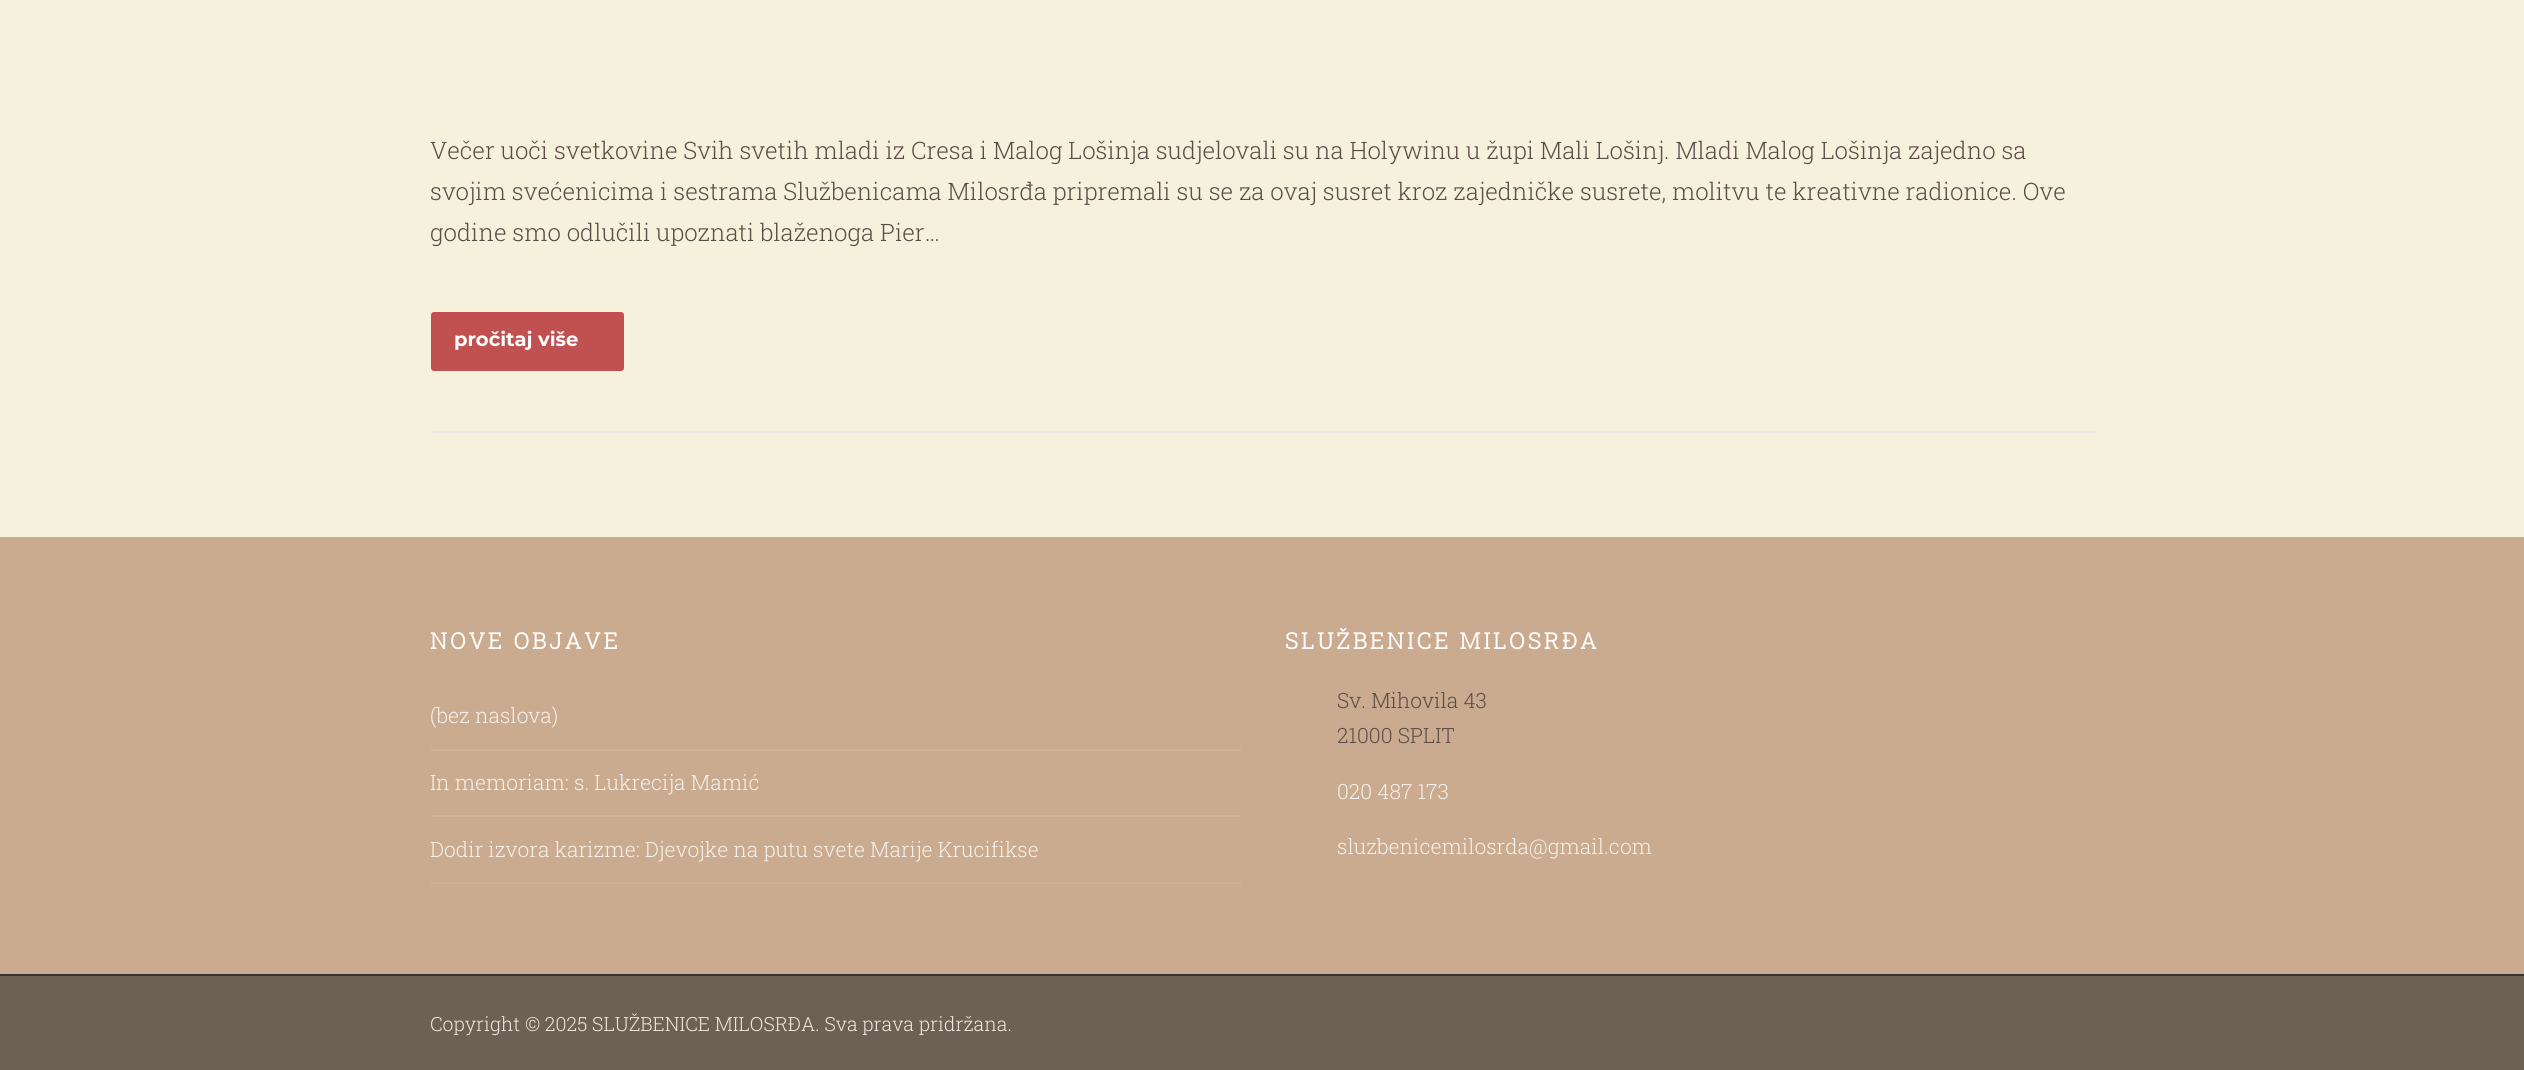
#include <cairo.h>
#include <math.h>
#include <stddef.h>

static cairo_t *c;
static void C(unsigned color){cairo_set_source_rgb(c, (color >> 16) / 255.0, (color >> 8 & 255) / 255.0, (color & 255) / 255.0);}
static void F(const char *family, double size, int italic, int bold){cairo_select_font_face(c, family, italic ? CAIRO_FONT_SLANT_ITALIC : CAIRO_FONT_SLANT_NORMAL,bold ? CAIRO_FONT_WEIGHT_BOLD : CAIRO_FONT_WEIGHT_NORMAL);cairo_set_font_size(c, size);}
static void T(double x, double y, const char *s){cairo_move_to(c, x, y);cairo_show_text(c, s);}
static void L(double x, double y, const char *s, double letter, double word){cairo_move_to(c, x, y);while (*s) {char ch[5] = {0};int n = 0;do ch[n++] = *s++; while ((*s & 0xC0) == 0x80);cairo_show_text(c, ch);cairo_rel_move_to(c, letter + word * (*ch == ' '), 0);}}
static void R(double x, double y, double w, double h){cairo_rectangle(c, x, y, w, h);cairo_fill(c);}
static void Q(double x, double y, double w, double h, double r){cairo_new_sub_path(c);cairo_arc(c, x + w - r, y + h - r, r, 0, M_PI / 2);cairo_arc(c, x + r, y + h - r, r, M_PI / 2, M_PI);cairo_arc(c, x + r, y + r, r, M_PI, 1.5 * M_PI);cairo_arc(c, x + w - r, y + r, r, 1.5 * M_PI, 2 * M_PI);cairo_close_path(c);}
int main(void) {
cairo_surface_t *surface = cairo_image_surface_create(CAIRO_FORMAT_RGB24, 2524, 1070);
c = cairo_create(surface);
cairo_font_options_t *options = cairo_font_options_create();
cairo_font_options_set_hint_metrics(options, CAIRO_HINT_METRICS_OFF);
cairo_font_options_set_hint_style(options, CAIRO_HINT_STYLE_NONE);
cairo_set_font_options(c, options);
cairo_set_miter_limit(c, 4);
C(0xf6f1dc);
cairo_paint(c);
C(0xe9e9e9);
R(431,431,1665,2);
F("Roboto Slab Light",24,0,0);
C(0x5b4c47);
T(430,159,"Večer uoči svetkovine Svih svetih mladi iz Cresa i Malog Lošinja sudjelovali su na Holywinu u župi Mali Lošinj. Mladi Malog Lošinja zajedno sa");
T(430,200,"svojim svećenicima i sestrama Službenicama Milosrđa pripremali su se za ovaj susret kroz zajedničke susrete, molitvu te kreativne radionice. Ove");
T(430,241,"godine smo odlučili upoznati blaženoga Pier…");
C(0xc15151);
Q(431,312,193,59,3);
cairo_fill(c);
F("Montserrat",19.5,0,1);
C(0xffffff);
T(454,346,"pročitaj više");
C(0xcaab8f);
R(0,537,2524,437);
F("Roboto Slab",22.5,0,1);
C(0xffffff);
L(430,649,"NOVE OBJAVE",3,0);
C(0xcfb39a);
R(431,749,810,2);
F("Roboto Slab Light",21,0,0);
C(0xf4f0ea);
T(430,723,"(bez naslova)");
C(0xcfb39a);
R(431,815,810,2);
C(0xf4f0ea);
T(430,790,"In memoriam: s. Lukrecija Mamić");
C(0xcfb39a);
R(431,882,810,2);
C(0xf4f0ea);
T(430,857,"Dodir izvora karizme: Djevojke na putu svete Marije Krucifikse");
F("Roboto Slab",22.5,0,1);
C(0xffffff);
L(1285,649,"SLUŽBENICE MILOSRĐA",3,0);
F("Roboto Slab Light",21,0,0);
C(0x5b4c47);
T(1337,708,"Sv. Mihovila 43");
T(1337,743,"21000 SPLIT");
C(0xf4f0ea);
T(1337,799,"020 487 173");
T(1337,854,"sluzbenicemilosrda@gmail.com");
C(0x6d6054);
R(0,976,2524,94);
C(0x333333);
R(0,974,2524,2);
F("Roboto Slab Light",19.5,0,0);
C(0xf2e8e1);
T(430,1031,"Copyright © 2025 SLUŽBENICE MILOSRĐA. Sva prava pridržana.");
cairo_surface_write_to_png(surface, "o.png");
cairo_font_options_destroy(options);
cairo_destroy(c);
cairo_surface_destroy(surface);
return 0;
}
